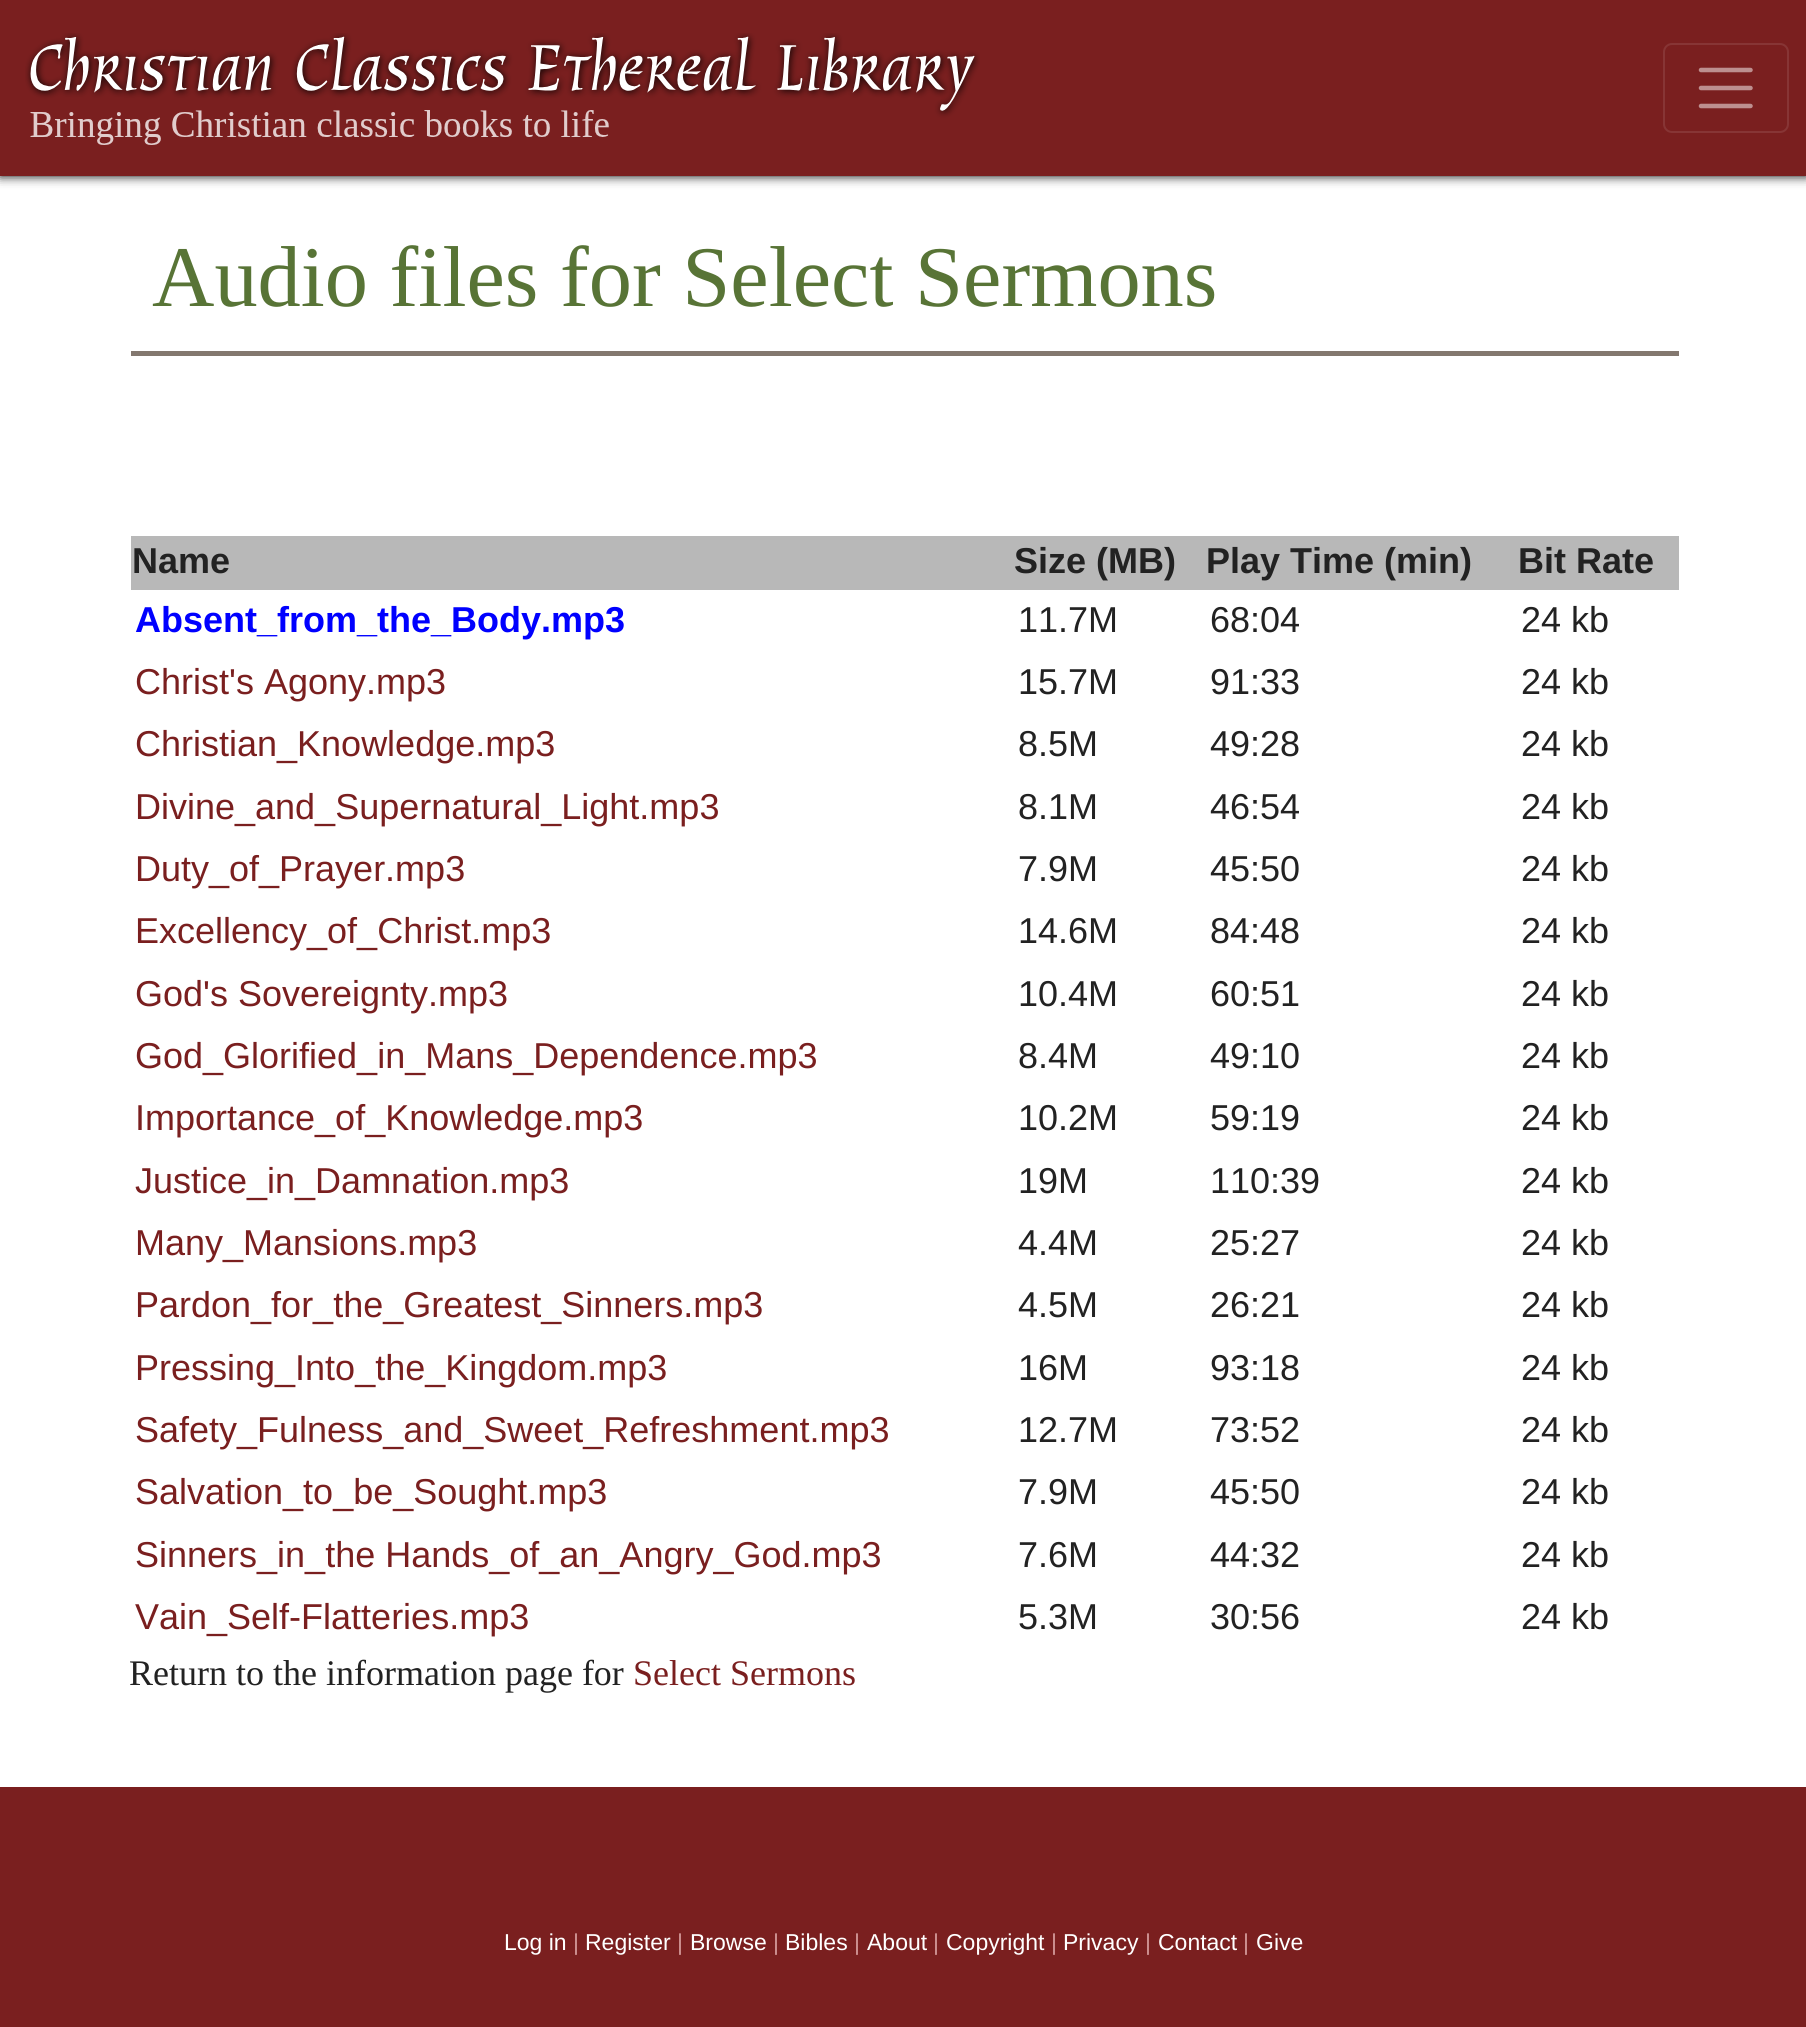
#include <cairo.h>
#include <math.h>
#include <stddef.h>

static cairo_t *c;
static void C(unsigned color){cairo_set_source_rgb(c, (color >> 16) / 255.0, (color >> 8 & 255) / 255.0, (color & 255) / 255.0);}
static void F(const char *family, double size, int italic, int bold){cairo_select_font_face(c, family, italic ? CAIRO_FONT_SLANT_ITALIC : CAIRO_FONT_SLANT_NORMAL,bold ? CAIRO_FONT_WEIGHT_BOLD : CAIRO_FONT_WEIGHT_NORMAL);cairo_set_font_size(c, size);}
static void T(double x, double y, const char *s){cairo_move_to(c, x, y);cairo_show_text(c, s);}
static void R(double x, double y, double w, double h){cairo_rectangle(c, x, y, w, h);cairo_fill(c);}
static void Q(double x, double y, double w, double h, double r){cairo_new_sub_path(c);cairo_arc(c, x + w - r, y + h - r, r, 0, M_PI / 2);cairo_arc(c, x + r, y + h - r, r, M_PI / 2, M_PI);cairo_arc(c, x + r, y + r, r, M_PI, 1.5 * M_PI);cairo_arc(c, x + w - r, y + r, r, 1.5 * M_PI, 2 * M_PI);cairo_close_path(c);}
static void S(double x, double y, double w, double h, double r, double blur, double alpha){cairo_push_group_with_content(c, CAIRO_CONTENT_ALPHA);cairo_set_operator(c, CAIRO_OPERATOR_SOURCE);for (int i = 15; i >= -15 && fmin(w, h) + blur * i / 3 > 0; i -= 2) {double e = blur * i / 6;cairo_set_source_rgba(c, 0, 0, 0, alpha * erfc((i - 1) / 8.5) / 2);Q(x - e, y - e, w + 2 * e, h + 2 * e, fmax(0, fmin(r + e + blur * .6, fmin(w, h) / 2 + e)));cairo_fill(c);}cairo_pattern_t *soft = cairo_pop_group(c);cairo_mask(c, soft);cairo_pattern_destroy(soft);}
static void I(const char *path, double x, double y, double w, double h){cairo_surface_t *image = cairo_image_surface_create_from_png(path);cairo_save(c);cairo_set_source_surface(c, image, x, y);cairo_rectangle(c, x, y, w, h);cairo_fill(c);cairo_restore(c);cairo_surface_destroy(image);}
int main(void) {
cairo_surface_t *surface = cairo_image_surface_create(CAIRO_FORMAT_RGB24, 1806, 2027);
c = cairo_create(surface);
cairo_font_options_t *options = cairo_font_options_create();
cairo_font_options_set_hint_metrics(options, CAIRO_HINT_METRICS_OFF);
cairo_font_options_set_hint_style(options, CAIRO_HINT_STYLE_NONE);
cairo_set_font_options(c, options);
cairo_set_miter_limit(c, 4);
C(0xffffff);
cairo_paint(c);
C(0x000000);
S(0,0,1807,176,0,5.5,1);
C(0x7a1f1f);
R(0,0,1806,176);
I("1.png",25,33,955,112);
Q(1664,44,124,88,8);
C(0x873535);
cairo_stroke(c);
cairo_new_path(c);
cairo_move_to(c,1701,70);
cairo_line_to(c,1750.5,70);
cairo_move_to(c,1701,88);
cairo_line_to(c,1750.5,88);
cairo_move_to(c,1701,106);
cairo_line_to(c,1750.5,106);
C(0xbd8f8f);
cairo_set_line_width(c,4.5);
cairo_set_line_cap(c,CAIRO_LINE_CAP_ROUND);
cairo_stroke(c);
C(0x83786f);
R(131,351,1548,5);
F("Liberation Serif",86.4,0,0);
C(0x587436);
T(152,306,"Audio files for Select Sermons");
C(0xb8b8b8);
R(131,536,1548,54);
F("Liberation Sans",36,0,1);
C(0x222222);
T(132,573,"Name");
T(1014,573,"Size (MB)");
T(1206,573,"Play Time (min)");
T(1518,573,"Bit Rate");
C(0x0000ff);
T(135,632,"Absent_from_the_Body.mp3");
F("Liberation Sans",36,0,0);
C(0x222222);
T(1018,632,"11.7M");
T(1210,632,"68:04");
T(1521,632,"24 kb");
C(0x7a1f1f);
T(135,694,"Christ's Agony.mp3");
C(0x222222);
T(1018,694,"15.7M");
T(1210,694,"91:33");
T(1521,694,"24 kb");
C(0x7a1f1f);
T(135,756,"Christian_Knowledge.mp3");
C(0x222222);
T(1018,756,"8.5M");
T(1210,756,"49:28");
T(1521,756,"24 kb");
C(0x7a1f1f);
T(135,819,"Divine_and_Supernatural_Light.mp3");
C(0x222222);
T(1018,819,"8.1M");
T(1210,819,"46:54");
T(1521,819,"24 kb");
C(0x7a1f1f);
T(135,881,"Duty_of_Prayer.mp3");
C(0x222222);
T(1018,881,"7.9M");
T(1210,881,"45:50");
T(1521,881,"24 kb");
C(0x7a1f1f);
T(135,943,"Excellency_of_Christ.mp3");
C(0x222222);
T(1018,943,"14.6M");
T(1210,943,"84:48");
T(1521,943,"24 kb");
C(0x7a1f1f);
T(135,1006,"God's Sovereignty.mp3");
C(0x222222);
T(1018,1006,"10.4M");
T(1210,1006,"60:51");
T(1521,1006,"24 kb");
C(0x7a1f1f);
T(135,1068,"God_Glorified_in_Mans_Dependence.mp3");
C(0x222222);
T(1018,1068,"8.4M");
T(1210,1068,"49:10");
T(1521,1068,"24 kb");
C(0x7a1f1f);
T(135,1130,"Importance_of_Knowledge.mp3");
C(0x222222);
T(1018,1130,"10.2M");
T(1210,1130,"59:19");
T(1521,1130,"24 kb");
C(0x7a1f1f);
T(135,1193,"Justice_in_Damnation.mp3");
C(0x222222);
T(1018,1193,"19M");
T(1210,1193,"110:39");
T(1521,1193,"24 kb");
C(0x7a1f1f);
T(135,1255,"Many_Mansions.mp3");
C(0x222222);
T(1018,1255,"4.4M");
T(1210,1255,"25:27");
T(1521,1255,"24 kb");
C(0x7a1f1f);
T(135,1317,"Pardon_for_the_Greatest_Sinners.mp3");
C(0x222222);
T(1018,1317,"4.5M");
T(1210,1317,"26:21");
T(1521,1317,"24 kb");
C(0x7a1f1f);
T(135,1380,"Pressing_Into_the_Kingdom.mp3");
C(0x222222);
T(1018,1380,"16M");
T(1210,1380,"93:18");
T(1521,1380,"24 kb");
C(0x7a1f1f);
T(135,1442,"Safety_Fulness_and_Sweet_Refreshment.mp3");
C(0x222222);
T(1018,1442,"12.7M");
T(1210,1442,"73:52");
T(1521,1442,"24 kb");
C(0x7a1f1f);
T(135,1504,"Salvation_to_be_Sought.mp3");
C(0x222222);
T(1018,1504,"7.9M");
T(1210,1504,"45:50");
T(1521,1504,"24 kb");
C(0x7a1f1f);
T(135,1567,"Sinners_in_the Hands_of_an_Angry_God.mp3");
C(0x222222);
T(1018,1567,"7.6M");
T(1210,1567,"44:32");
T(1521,1567,"24 kb");
C(0x7a1f1f);
T(135,1629,"Vain_Self-Flatteries.mp3");
C(0x222222);
T(1018,1629,"5.3M");
T(1210,1629,"30:56");
T(1521,1629,"24 kb");
F("Liberation Serif",36,0,0);
T(129,1685,"Return to the information page for");
C(0x7a1f1f);
T(633,1685,"Select Sermons");
R(0,1787,1806,240);
F("Liberation Sans",23,0,0);
C(0xffffff);
T(504,1950,"Log in");
C(0xd09595);
T(573,1950,"|");
C(0xffffff);
T(585,1950,"Register");
C(0xd09595);
T(677,1950,"|");
C(0xffffff);
T(690,1950,"Browse");
C(0xd09595);
T(773,1950,"|");
C(0xffffff);
T(785,1950,"Bibles");
C(0xd09595);
T(854,1950,"|");
C(0xffffff);
T(867,1950,"About");
C(0xd09595);
T(933,1950,"|");
C(0xffffff);
T(946,1950,"Copyright");
C(0xd09595);
T(1051,1950,"|");
C(0xffffff);
T(1063,1950,"Privacy");
C(0xd09595);
T(1145,1950,"|");
C(0xffffff);
T(1158,1950,"Contact");
C(0xd09595);
T(1243,1950,"|");
C(0xffffff);
T(1256,1950,"Give");
cairo_surface_write_to_png(surface, "o.png");
cairo_font_options_destroy(options);
cairo_destroy(c);
cairo_surface_destroy(surface);
return 0;
}
